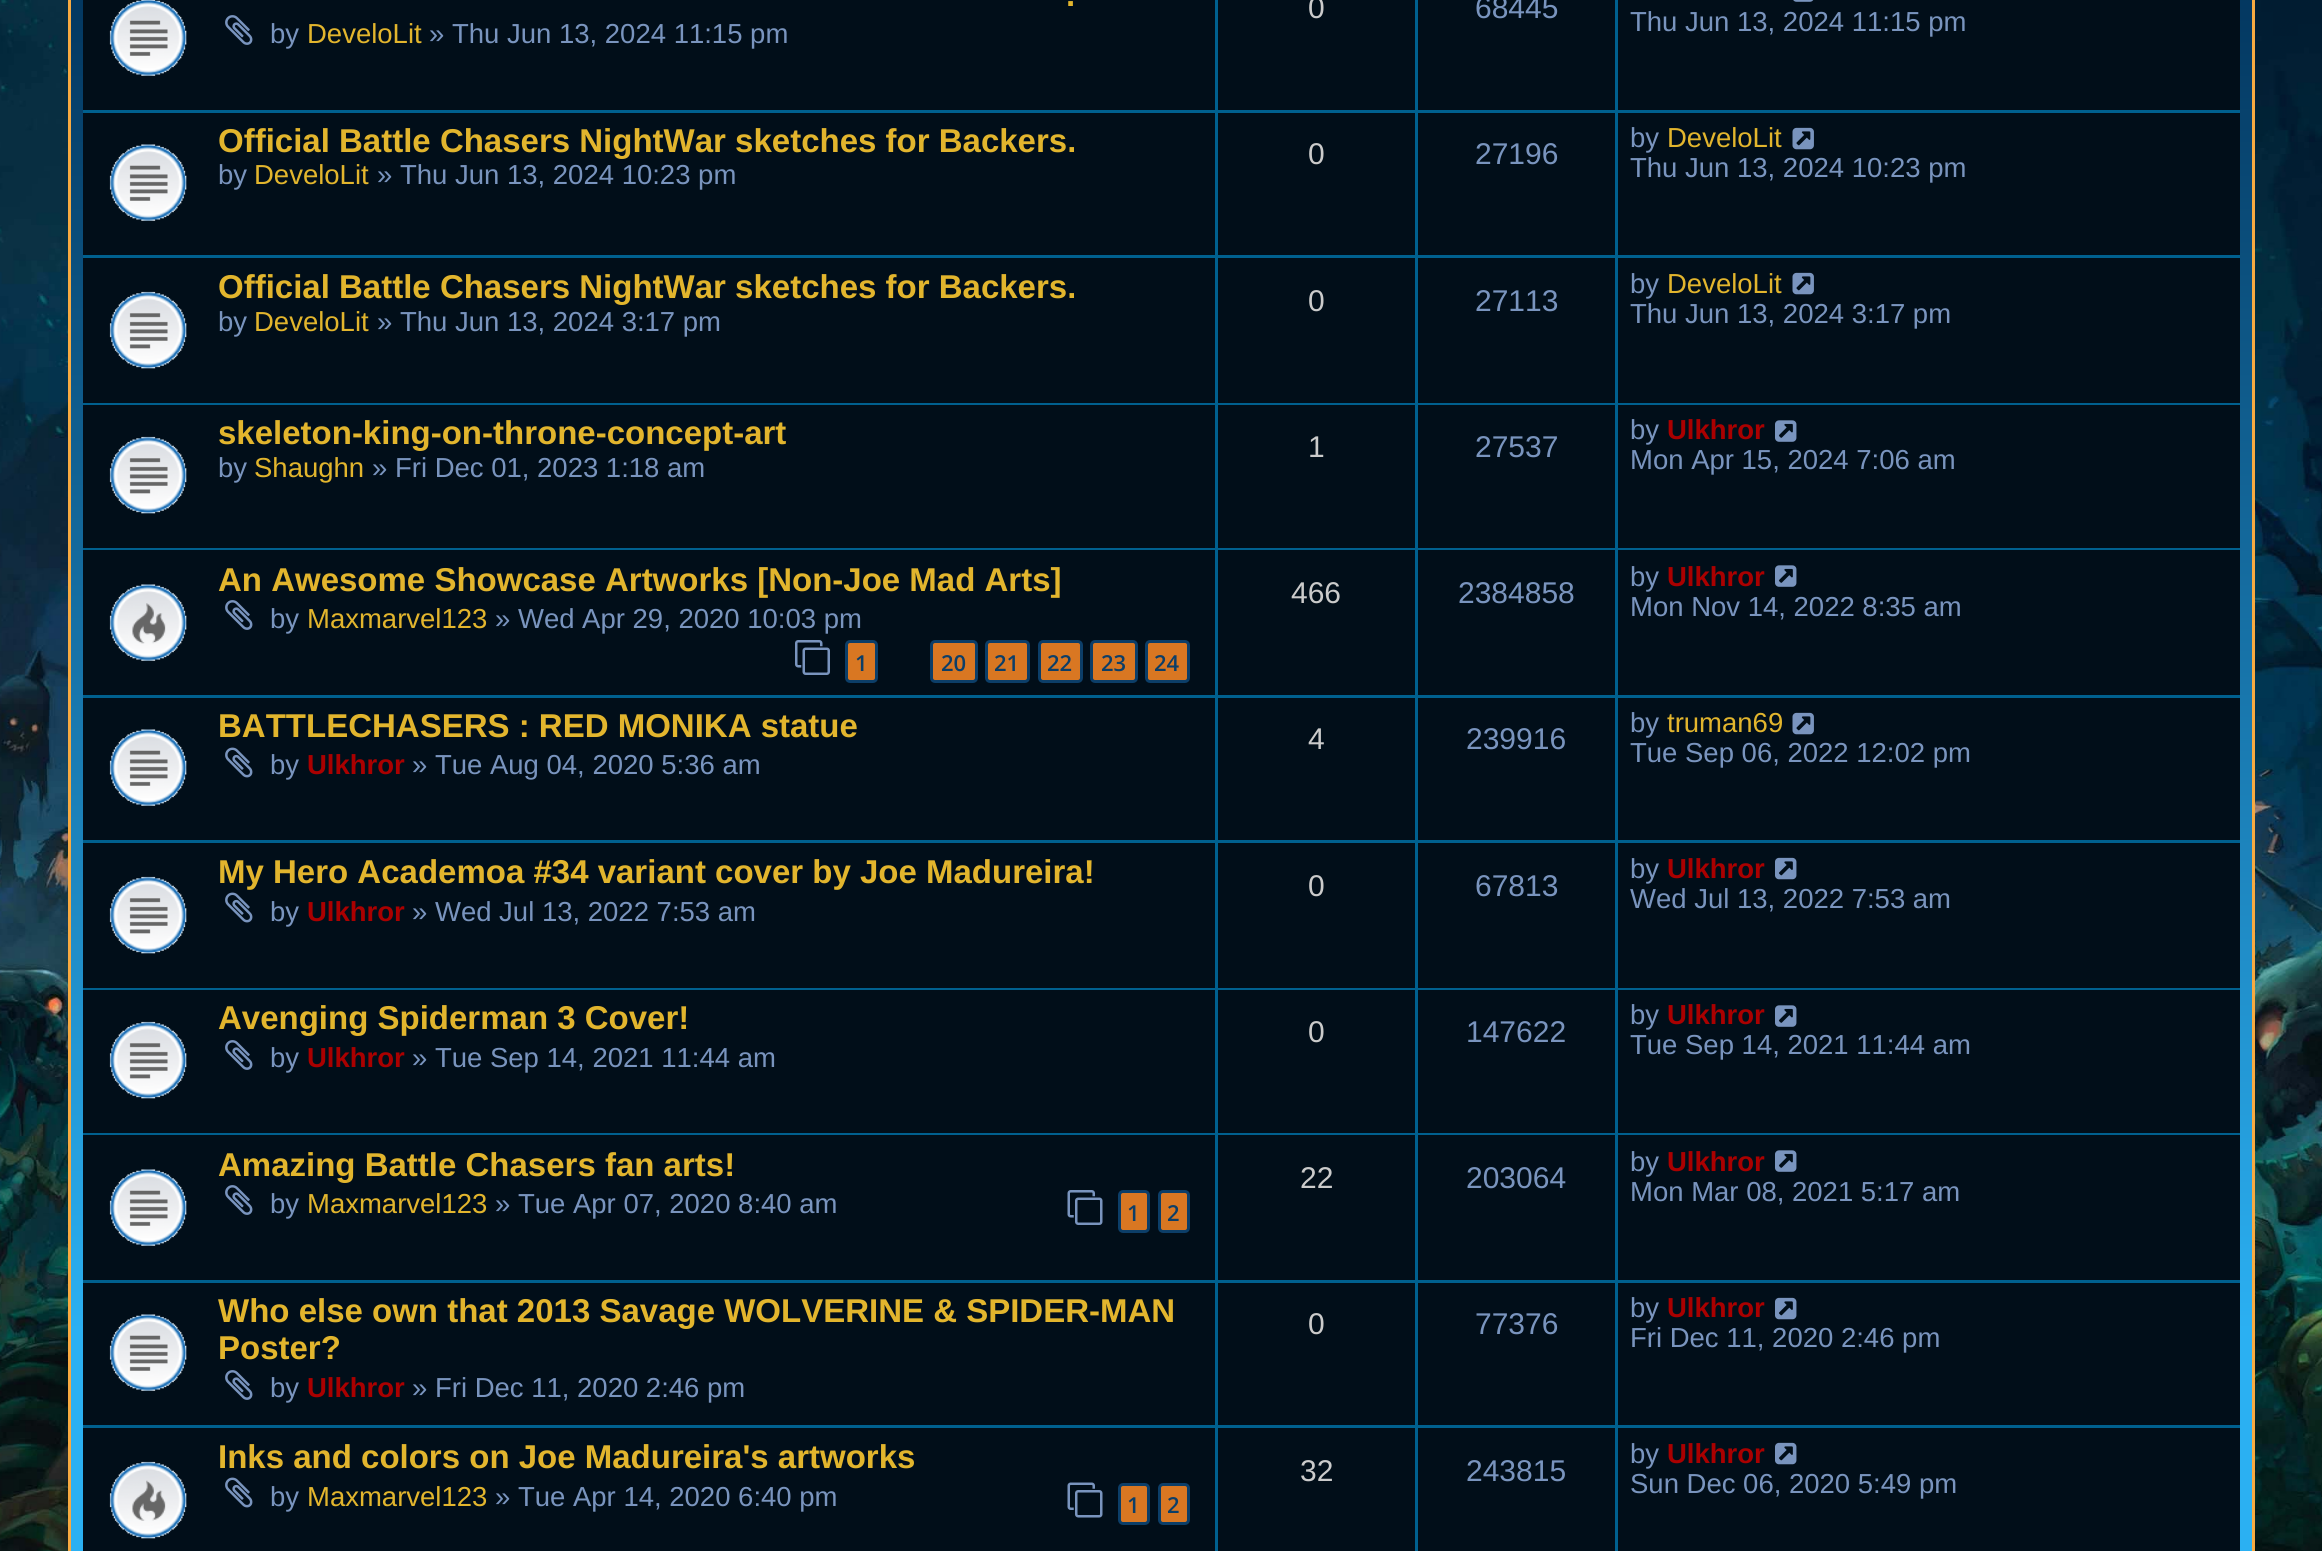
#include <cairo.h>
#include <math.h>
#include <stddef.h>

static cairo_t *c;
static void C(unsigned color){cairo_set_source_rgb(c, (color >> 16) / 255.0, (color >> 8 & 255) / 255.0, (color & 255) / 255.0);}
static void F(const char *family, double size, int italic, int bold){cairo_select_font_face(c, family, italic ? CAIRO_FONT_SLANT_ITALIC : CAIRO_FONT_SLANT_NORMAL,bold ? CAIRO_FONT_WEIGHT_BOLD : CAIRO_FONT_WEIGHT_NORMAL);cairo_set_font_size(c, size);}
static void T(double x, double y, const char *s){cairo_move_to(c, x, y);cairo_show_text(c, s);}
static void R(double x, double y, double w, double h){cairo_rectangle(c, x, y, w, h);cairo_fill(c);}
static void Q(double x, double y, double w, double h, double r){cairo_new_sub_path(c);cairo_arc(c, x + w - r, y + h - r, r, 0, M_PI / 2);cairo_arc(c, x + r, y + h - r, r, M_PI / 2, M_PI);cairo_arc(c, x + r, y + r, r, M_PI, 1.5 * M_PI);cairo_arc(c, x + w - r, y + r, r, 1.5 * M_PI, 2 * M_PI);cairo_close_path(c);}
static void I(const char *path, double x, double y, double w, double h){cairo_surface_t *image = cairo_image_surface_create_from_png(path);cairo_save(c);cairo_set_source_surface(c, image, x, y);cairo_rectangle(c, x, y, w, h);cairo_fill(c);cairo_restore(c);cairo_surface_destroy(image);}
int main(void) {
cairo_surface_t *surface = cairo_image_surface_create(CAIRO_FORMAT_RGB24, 2322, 1551);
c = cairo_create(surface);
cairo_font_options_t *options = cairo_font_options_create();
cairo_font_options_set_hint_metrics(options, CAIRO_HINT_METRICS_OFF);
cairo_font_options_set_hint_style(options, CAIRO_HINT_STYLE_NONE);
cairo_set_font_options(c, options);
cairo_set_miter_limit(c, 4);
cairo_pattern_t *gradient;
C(0xffffff);
cairo_paint(c);
I("1.png",0,0,2322,1551);
gradient = cairo_pattern_create_linear(1161,-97,1161,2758);
cairo_pattern_add_color_stop_rgba(gradient,0,0,0.463,0.694,1);
cairo_pattern_add_color_stop_rgba(gradient,.02,0.008,0.204,0.361,1);
cairo_pattern_add_color_stop_rgba(gradient,.5,0.169,0.69,0.949,1);
cairo_pattern_add_color_stop_rgba(gradient,1,0.169,0.69,0.949,1);
cairo_set_source(c,gradient);
cairo_pattern_destroy(gradient);
R(71,0,2181,1551);
cairo_rectangle(c,69.5,-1.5,2184,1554);
C(0xf7aa41);
cairo_set_line_width(c,3);
cairo_stroke(c);
C(0x010e19);
R(83,0,2157,110);
C(0x00608f);
R(83,110,2157,3);
I("2.png",109,0,78,76);
F("Liberation Sans",33,0,1);
C(0xe2b52d);
T(1066,6,".");
I("3.png",225,15,28,30);
F("Liberation Sans",27.5,0,0);
C(0x7994be);
T(270,43,"by");
C(0xe2b52d);
T(307,43,"DeveloLit");
C(0x7994be);
T(429,43,"» Thu Jun 13, 2024 11:15 pm");
C(0x00608f);
R(1215,0,3,110);
F("Liberation Sans",30,0,0);
C(0xcbcbcb);
T(1308,18,"0");
C(0x00608f);
R(1415,0,3,110);
C(0x7994be);
T(1475,18,"68445");
C(0x00608f);
R(1615,0,3,110);
I("4.png",1793,0,21,2);
F("Liberation Sans",27.5,0,0);
C(0x7994be);
T(1630,31,"Thu Jun 13, 2024 11:15 pm");
C(0x010e19);
R(83,113,2157,142);
C(0x00608f);
R(83,255,2157,3);
I("5.png",109,144,78,77);
F("Liberation Sans",33,0,1);
C(0xe2b52d);
T(218,152,"Official Battle Chasers NightWar sketches for Backers.");
F("Liberation Sans",27.5,0,0);
C(0x7994be);
T(218,184,"by");
C(0xe2b52d);
T(254,184,"DeveloLit");
C(0x7994be);
T(377,184,"» Thu Jun 13, 2024 10:23 pm");
C(0x00608f);
R(1215,113,3,142);
F("Liberation Sans",30,0,0);
C(0xcbcbcb);
T(1308,164,"0");
C(0x00608f);
R(1415,113,3,142);
C(0x7994be);
T(1475,164,"27196");
C(0x00608f);
R(1615,113,3,142);
F("Liberation Sans",27.5,0,0);
C(0x7994be);
T(1630,147,"by");
C(0xe2b52d);
T(1667,147,"DeveloLit");
I("6.png",1792,127,22,23);
C(0x7994be);
T(1630,177,"Thu Jun 13, 2024 10:23 pm");
C(0x010e19);
R(83,258,2157,145);
C(0x00608f);
R(83,403,2157,2);
I("7.png",109,291,78,78);
F("Liberation Sans",33,0,1);
C(0xe2b52d);
T(218,298,"Official Battle Chasers NightWar sketches for Backers.");
F("Liberation Sans",27.5,0,0);
C(0x7994be);
T(218,331,"by");
C(0xe2b52d);
T(254,331,"DeveloLit");
C(0x7994be);
T(377,331,"» Thu Jun 13, 2024 3:17 pm");
C(0x00608f);
R(1215,258,3,145);
F("Liberation Sans",30,0,0);
C(0xcbcbcb);
T(1308,311,"0");
C(0x00608f);
R(1415,258,3,145);
C(0x7994be);
T(1475,311,"27113");
C(0x00608f);
R(1615,258,3,145);
F("Liberation Sans",27.5,0,0);
C(0x7994be);
T(1630,293,"by");
C(0xe2b52d);
T(1667,293,"DeveloLit");
I("6.png",1792,272,22,23);
C(0x7994be);
T(1630,323,"Thu Jun 13, 2024 3:17 pm");
C(0x010e19);
R(83,405,2157,143);
C(0x00608f);
R(83,548,2157,2);
I("7.png",109,436,78,78);
F("Liberation Sans",33,0,1);
C(0xe2b52d);
T(218,444,"skeleton-king-on-throne-concept-art");
F("Liberation Sans",27.5,0,0);
C(0x7994be);
T(218,477,"by");
C(0xe2b52d);
T(254,477,"Shaughn");
C(0x7994be);
T(372,477,"» Fri Dec 01, 2023 1:18 am");
C(0x00608f);
R(1215,405,3,143);
F("Liberation Sans",30,0,0);
C(0xcbcbcb);
T(1308,457,"1");
C(0x00608f);
R(1415,405,3,143);
C(0x7994be);
T(1475,457,"27537");
C(0x00608f);
R(1615,405,3,143);
F("Liberation Sans",27.5,0,0);
C(0x7994be);
T(1630,439,"by");
F("Liberation Sans",27.5,0,1);
C(0xaa0000);
T(1667,439,"Ulkhror");
I("8.png",1775,420,22,22);
F("Liberation Sans",27.5,0,0);
C(0x7994be);
T(1630,469,"Mon Apr 15, 2024 7:06 am");
C(0x010e19);
R(83,550,2157,145);
C(0x00608f);
R(83,695,2157,3);
I("9.png",109,584,78,77);
F("Liberation Sans",33,0,1);
C(0xe2b52d);
T(218,591,"An Awesome Showcase Artworks [Non-Joe Mad Arts]");
I("3.png",225,600,28,30);
F("Liberation Sans",27.5,0,0);
C(0x7994be);
T(270,628,"by");
C(0xe2b52d);
T(307,628,"Maxmarvel123");
C(0x7994be);
T(495,628,"» Wed Apr 29, 2020 10:03 pm");
I("10.png",795,640,35,35);
C(0xd97722);
Q(846.5,641.5,30,40,3.5);
cairo_fill_preserve(c);
C(0x0c3e68);
cairo_stroke(c);
F("Open Sans SemiBold",22,0,0);
T(855,671,"1");
C(0xd97722);
Q(931.5,641.5,45,40,3.5);
cairo_fill_preserve(c);
C(0x0c3e68);
cairo_stroke(c);
T(941,671,"20");
C(0xd97722);
Q(986.5,641.5,42,40,3.5);
cairo_fill_preserve(c);
C(0x0c3e68);
cairo_stroke(c);
T(994,671,"21");
C(0xd97722);
Q(1039.5,641.5,42,40,3.5);
cairo_fill_preserve(c);
C(0x0c3e68);
cairo_stroke(c);
T(1047,671,"22");
C(0xd97722);
Q(1091.5,641.5,45,40,3.5);
cairo_fill_preserve(c);
C(0x0c3e68);
cairo_stroke(c);
T(1101,671,"23");
C(0xd97722);
Q(1146.5,641.5,42,40,3.5);
cairo_fill_preserve(c);
C(0x0c3e68);
cairo_stroke(c);
T(1154,671,"24");
C(0x00608f);
R(1215,550,3,145);
F("Liberation Sans",30,0,0);
C(0xcbcbcb);
T(1291,603,"466");
C(0x00608f);
R(1415,550,3,145);
C(0x7994be);
T(1458,603,"2384858");
C(0x00608f);
R(1615,550,3,145);
F("Liberation Sans",27.5,0,0);
C(0x7994be);
T(1630,586,"by");
F("Liberation Sans",27.5,0,1);
C(0xaa0000);
T(1667,586,"Ulkhror");
I("8.png",1775,565,22,22);
F("Liberation Sans",27.5,0,0);
C(0x7994be);
T(1630,616,"Mon Nov 14, 2022 8:35 am");
C(0x010e19);
R(83,698,2157,142);
C(0x00608f);
R(83,840,2157,3);
I("5.png",109,729,78,77);
F("Liberation Sans",33,0,1);
C(0xe2b52d);
T(218,737,"BATTLECHASERS : RED MONIKA statue");
I("11.png",225,747,28,31);
F("Liberation Sans",27.5,0,0);
C(0x7994be);
T(270,774,"by");
F("Liberation Sans",27.5,0,1);
C(0xaa0000);
T(307,774,"Ulkhror");
F("Liberation Sans",27.5,0,0);
C(0x7994be);
T(412,774,"» Tue Aug 04, 2020 5:36 am");
C(0x00608f);
R(1215,698,3,142);
F("Liberation Sans",30,0,0);
C(0xcbcbcb);
T(1308,749,"4");
C(0x00608f);
R(1415,698,3,142);
C(0x7994be);
T(1466,749,"239916");
C(0x00608f);
R(1615,698,3,142);
F("Liberation Sans",27.5,0,0);
C(0x7994be);
T(1630,732,"by");
C(0xe2b52d);
T(1667,732,"truman69");
I("6.png",1792,712,22,23);
C(0x7994be);
T(1630,762,"Tue Sep 06, 2022 12:02 pm");
C(0x010e19);
R(83,843,2157,145);
C(0x00608f);
R(83,988,2157,2);
I("7.png",109,876,78,78);
F("Liberation Sans",33,0,1);
C(0xe2b52d);
T(218,883,"My Hero Academoa #34 variant cover by Joe Madureira!");
I("11.png",225,892,28,31);
F("Liberation Sans",27.5,0,0);
C(0x7994be);
T(270,921,"by");
F("Liberation Sans",27.5,0,1);
C(0xaa0000);
T(307,921,"Ulkhror");
F("Liberation Sans",27.5,0,0);
C(0x7994be);
T(412,921,"» Wed Jul 13, 2022 7:53 am");
C(0x00608f);
R(1215,843,3,145);
F("Liberation Sans",30,0,0);
C(0xcbcbcb);
T(1308,896,"0");
C(0x00608f);
R(1415,843,3,145);
C(0x7994be);
T(1475,896,"67813");
C(0x00608f);
R(1615,843,3,145);
F("Liberation Sans",27.5,0,0);
C(0x7994be);
T(1630,878,"by");
F("Liberation Sans",27.5,0,1);
C(0xaa0000);
T(1667,878,"Ulkhror");
I("12.png",1775,857,22,23);
F("Liberation Sans",27.5,0,0);
C(0x7994be);
T(1630,908,"Wed Jul 13, 2022 7:53 am");
C(0x010e19);
R(83,990,2157,143);
C(0x00608f);
R(83,1133,2157,2);
I("7.png",109,1021,78,78);
F("Liberation Sans",33,0,1);
C(0xe2b52d);
T(218,1029,"Avenging Spiderman 3 Cover!");
I("3.png",225,1040,28,30);
F("Liberation Sans",27.5,0,0);
C(0x7994be);
T(270,1067,"by");
F("Liberation Sans",27.5,0,1);
C(0xaa0000);
T(307,1067,"Ulkhror");
F("Liberation Sans",27.5,0,0);
C(0x7994be);
T(412,1067,"» Tue Sep 14, 2021 11:44 am");
C(0x00608f);
R(1215,990,3,143);
F("Liberation Sans",30,0,0);
C(0xcbcbcb);
T(1308,1042,"0");
C(0x00608f);
R(1415,990,3,143);
C(0x7994be);
T(1466,1042,"147622");
C(0x00608f);
R(1615,990,3,143);
F("Liberation Sans",27.5,0,0);
C(0x7994be);
T(1630,1024,"by");
F("Liberation Sans",27.5,0,1);
C(0xaa0000);
T(1667,1024,"Ulkhror");
I("8.png",1775,1005,22,22);
F("Liberation Sans",27.5,0,0);
C(0x7994be);
T(1630,1054,"Tue Sep 14, 2021 11:44 am");
C(0x010e19);
R(83,1135,2157,145);
C(0x00608f);
R(83,1280,2157,3);
I("5.png",109,1169,78,77);
F("Liberation Sans",33,0,1);
C(0xe2b52d);
T(218,1176,"Amazing Battle Chasers fan arts!");
I("3.png",225,1185,28,30);
F("Liberation Sans",27.5,0,0);
C(0x7994be);
T(270,1213,"by");
C(0xe2b52d);
T(307,1213,"Maxmarvel123");
C(0x7994be);
T(495,1213,"» Tue Apr 07, 2020 8:40 am");
I("13.png",1067,1190,36,35);
C(0xd97722);
Q(1119.5,1191.5,29,40,3.5);
cairo_fill_preserve(c);
C(0x0c3e68);
cairo_stroke(c);
F("Open Sans SemiBold",22,0,0);
T(1127,1221,"1");
C(0xd97722);
Q(1159.5,1191.5,29,40,3.5);
cairo_fill_preserve(c);
C(0x0c3e68);
cairo_stroke(c);
T(1167,1221,"2");
C(0x00608f);
R(1215,1135,3,145);
F("Liberation Sans",30,0,0);
C(0xcbcbcb);
T(1300,1188,"22");
C(0x00608f);
R(1415,1135,3,145);
C(0x7994be);
T(1466,1188,"203064");
C(0x00608f);
R(1615,1135,3,145);
F("Liberation Sans",27.5,0,0);
C(0x7994be);
T(1630,1171,"by");
F("Liberation Sans",27.5,0,1);
C(0xaa0000);
T(1667,1171,"Ulkhror");
I("8.png",1775,1150,22,22);
F("Liberation Sans",27.5,0,0);
C(0x7994be);
T(1630,1201,"Mon Mar 08, 2021 5:17 am");
C(0x010e19);
R(83,1283,2157,142);
C(0x00608f);
R(83,1425,2157,3);
I("14.png",109,1314,78,77);
F("Liberation Sans",33,0,1);
C(0xe2b52d);
T(218,1322,"Who else own that 2013 Savage WOLVERINE & SPIDER-MAN");
T(218,1359,"Poster?");
I("3.png",225,1370,28,30);
F("Liberation Sans",27.5,0,0);
C(0x7994be);
T(270,1397,"by");
F("Liberation Sans",27.5,0,1);
C(0xaa0000);
T(307,1397,"Ulkhror");
F("Liberation Sans",27.5,0,0);
C(0x7994be);
T(412,1397,"» Fri Dec 11, 2020 2:46 pm");
C(0x00608f);
R(1215,1283,3,142);
F("Liberation Sans",30,0,0);
C(0xcbcbcb);
T(1308,1334,"0");
C(0x00608f);
R(1415,1283,3,142);
C(0x7994be);
T(1475,1334,"77376");
C(0x00608f);
R(1615,1283,3,142);
F("Liberation Sans",27.5,0,0);
C(0x7994be);
T(1630,1317,"by");
F("Liberation Sans",27.5,0,1);
C(0xaa0000);
T(1667,1317,"Ulkhror");
I("12.png",1775,1297,22,23);
F("Liberation Sans",27.5,0,0);
C(0x7994be);
T(1630,1347,"Fri Dec 11, 2020 2:46 pm");
C(0x010e19);
R(83,1428,2157,123);
I("15.png",109,1461,78,78);
F("Liberation Sans",33,0,1);
C(0xe2b52d);
T(218,1468,"Inks and colors on Joe Madureira's artworks");
I("11.png",225,1477,28,31);
F("Liberation Sans",27.5,0,0);
C(0x7994be);
T(270,1506,"by");
C(0xe2b52d);
T(307,1506,"Maxmarvel123");
C(0x7994be);
T(495,1506,"» Tue Apr 14, 2020 6:40 pm");
I("16.png",1067,1482,36,36);
C(0xd97722);
Q(1119.5,1484.5,29,39,3.5);
cairo_fill_preserve(c);
C(0x0c3e68);
cairo_stroke(c);
F("Open Sans SemiBold",22,0,0);
T(1127,1513,"1");
C(0xd97722);
Q(1159.5,1484.5,29,39,3.5);
cairo_fill_preserve(c);
C(0x0c3e68);
cairo_stroke(c);
T(1167,1513,"2");
C(0x00608f);
R(1215,1428,3,123);
F("Liberation Sans",30,0,0);
C(0xcbcbcb);
T(1300,1481,"32");
C(0x00608f);
R(1415,1428,3,123);
C(0x7994be);
T(1466,1481,"243815");
C(0x00608f);
R(1615,1428,3,123);
F("Liberation Sans",27.5,0,0);
C(0x7994be);
T(1630,1463,"by");
F("Liberation Sans",27.5,0,1);
C(0xaa0000);
T(1667,1463,"Ulkhror");
I("12.png",1775,1442,22,23);
F("Liberation Sans",27.5,0,0);
C(0x7994be);
T(1630,1493,"Sun Dec 06, 2020 5:49 pm");
cairo_surface_write_to_png(surface, "o.png");
cairo_font_options_destroy(options);
cairo_destroy(c);
cairo_surface_destroy(surface);
return 0;
}
